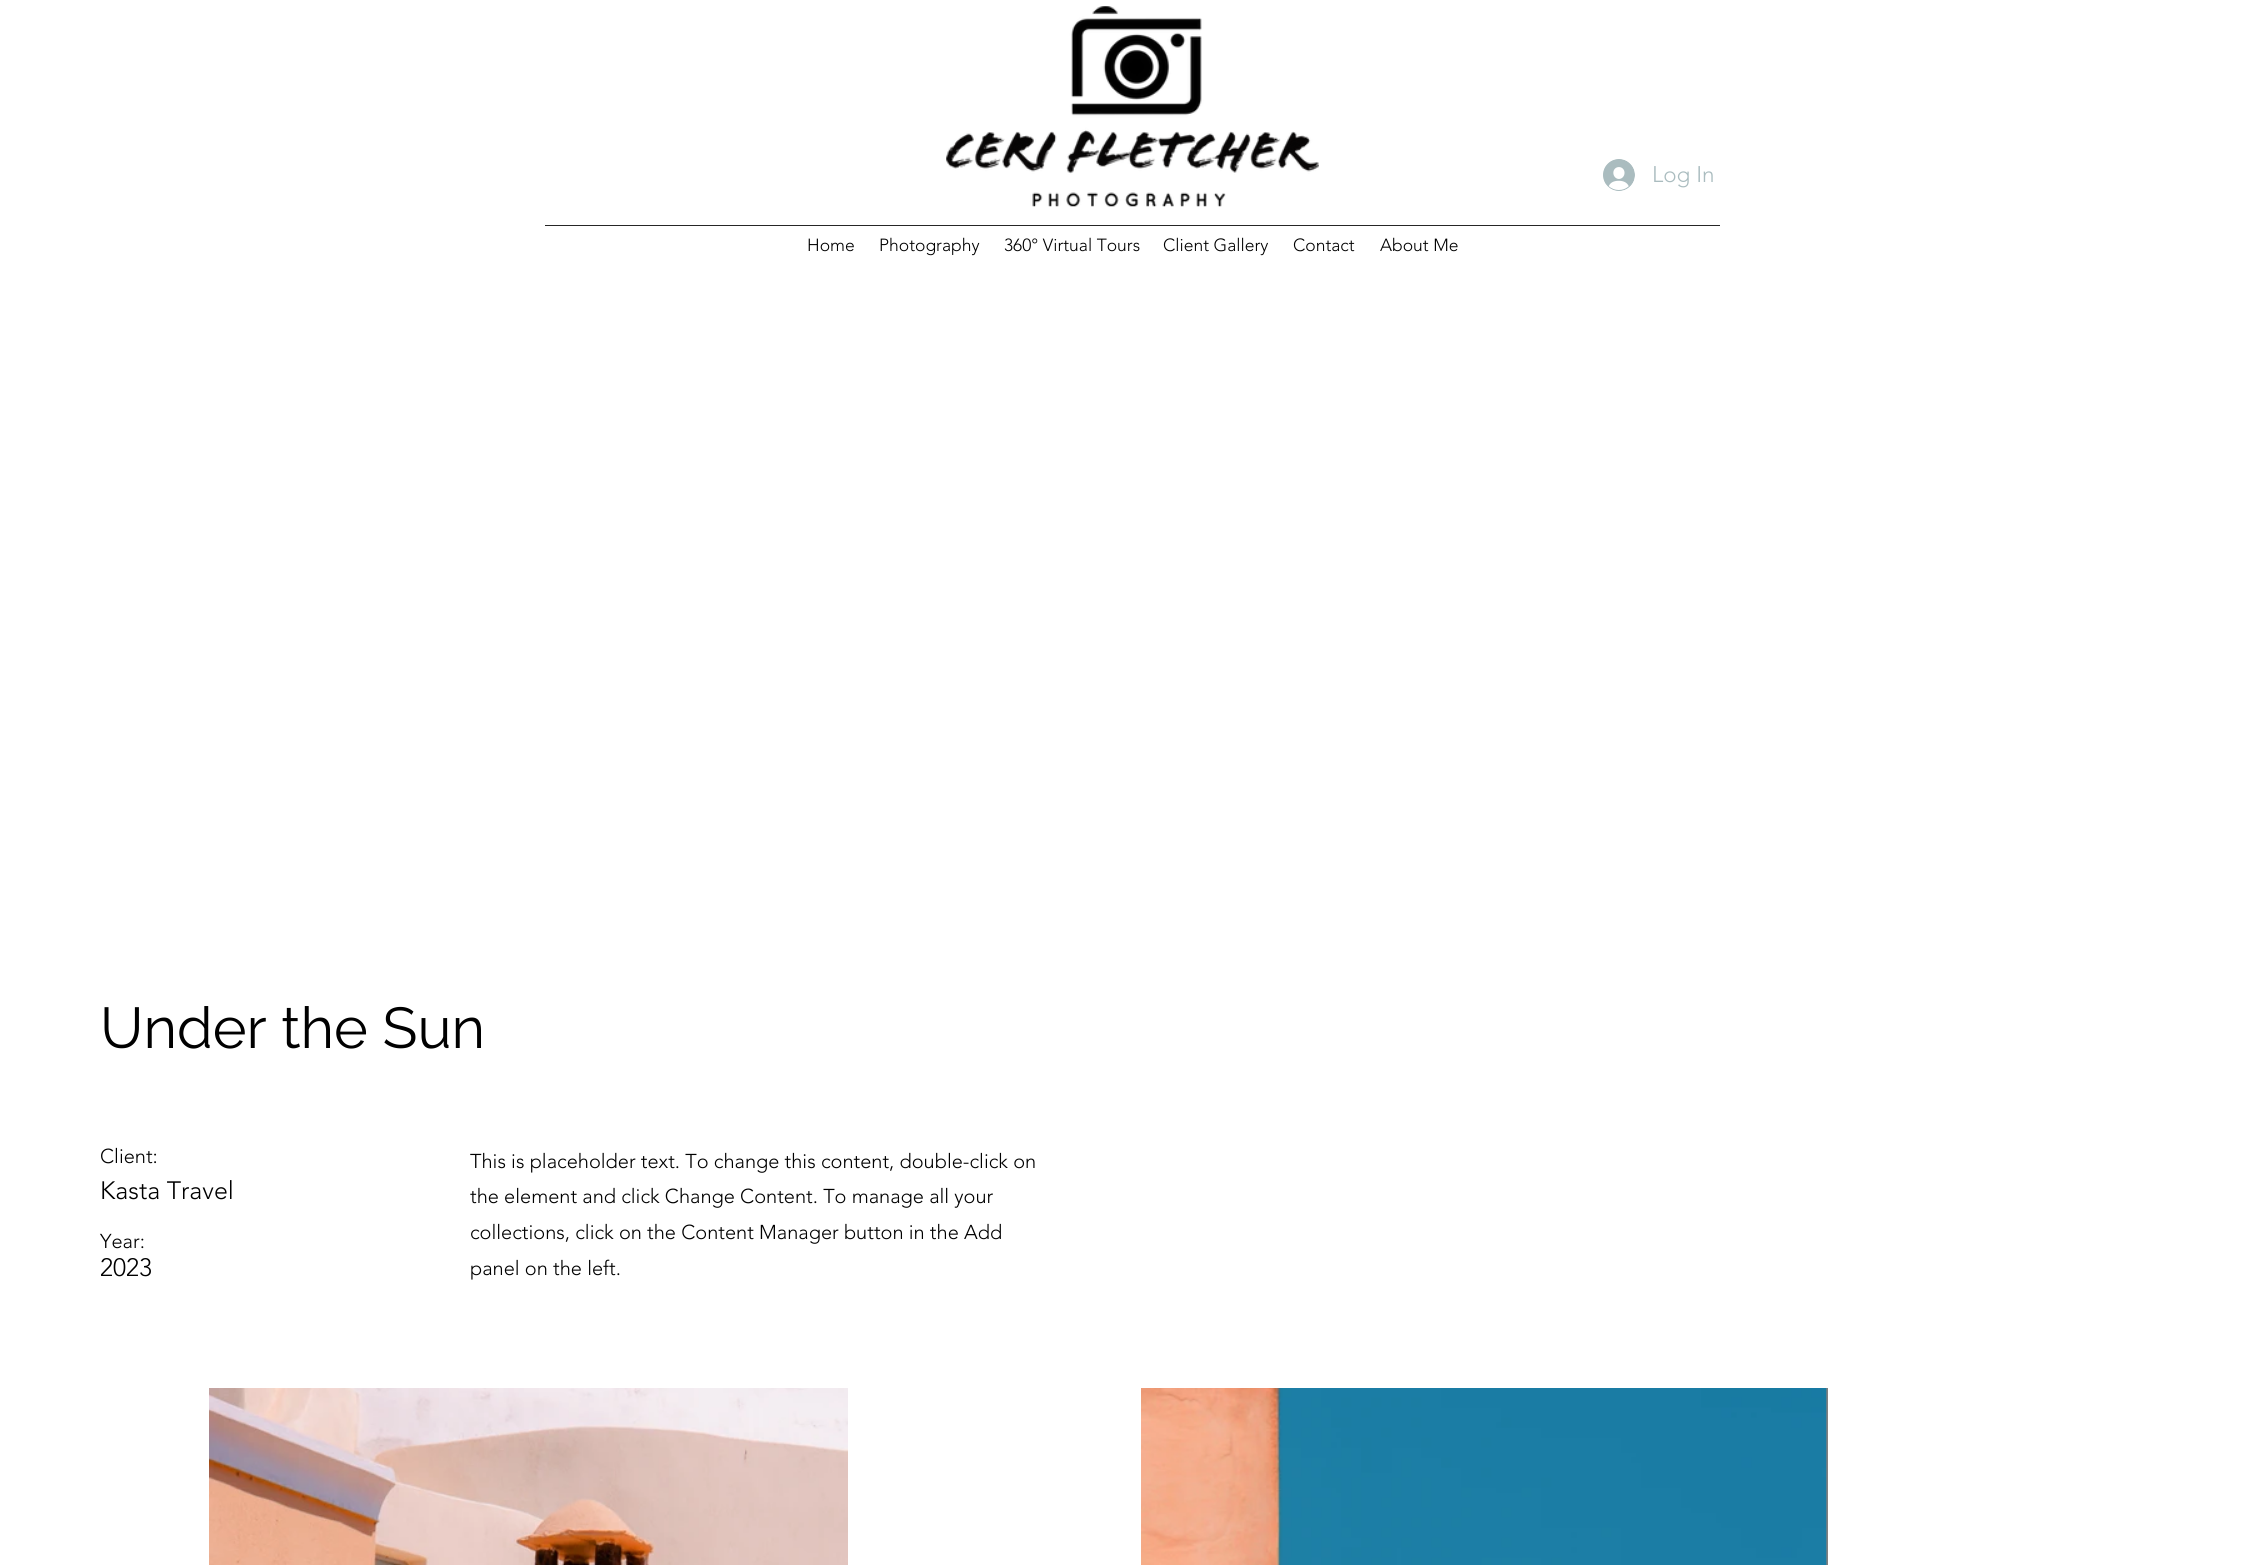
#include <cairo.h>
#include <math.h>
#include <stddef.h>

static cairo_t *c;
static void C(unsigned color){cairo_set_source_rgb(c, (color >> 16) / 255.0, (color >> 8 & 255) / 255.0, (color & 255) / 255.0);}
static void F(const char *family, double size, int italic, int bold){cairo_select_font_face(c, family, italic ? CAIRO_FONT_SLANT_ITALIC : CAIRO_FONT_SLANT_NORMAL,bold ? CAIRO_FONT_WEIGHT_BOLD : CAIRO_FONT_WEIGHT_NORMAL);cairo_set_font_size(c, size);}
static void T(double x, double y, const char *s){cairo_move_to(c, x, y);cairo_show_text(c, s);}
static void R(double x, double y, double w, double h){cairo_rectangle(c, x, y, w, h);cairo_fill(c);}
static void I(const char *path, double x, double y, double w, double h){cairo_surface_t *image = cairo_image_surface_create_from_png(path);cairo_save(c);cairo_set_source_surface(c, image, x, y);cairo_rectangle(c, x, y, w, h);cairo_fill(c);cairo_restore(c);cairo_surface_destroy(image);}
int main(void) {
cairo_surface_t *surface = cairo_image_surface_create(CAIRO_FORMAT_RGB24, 2265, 1565);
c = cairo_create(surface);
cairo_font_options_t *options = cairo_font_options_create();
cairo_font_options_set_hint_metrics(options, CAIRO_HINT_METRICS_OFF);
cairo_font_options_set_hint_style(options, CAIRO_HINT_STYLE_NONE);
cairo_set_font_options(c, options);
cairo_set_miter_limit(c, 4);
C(0xffffff);
cairo_paint(c);
I("1.png",946,6,373,201);
I("2.png",1603,159,32,32);
F("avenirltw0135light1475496 Light",22.5,0,0);
C(0xaabcbf);
T(1652,182,"Log In");
C(0x262626);
R(545,225,1175,1);
F("avenirltw0135light1475496 Light",17.5,0,0);
C(0x000000);
T(807,251,"Home");
T(879,251,"Photography");
T(1004,251,"360° Virtual Tours");
T(1163,251,"Client Gallery");
T(1293,251,"Contact");
T(1380,251,"About Me");
F("Raleway",57.5,0,0);
T(100,1048,"Under the Sun");
F("avenirltw0135light1475496 Light",20,0,0);
T(100,1163,"Client:");
T(470,1168,"This is placeholder text. To change this content, double-click on");
T(470,1203,"the element and click Change Content. To manage all your");
T(470,1239,"collections, click on the Content Manager button in the Add");
T(470,1275,"panel on the left.");
F("avenirltw0135light1475496 Light",25,0,0);
T(100,1199,"Kasta Travel");
F("avenirltw0135light1475496 Light",20,0,0);
T(100,1248,"Year:");
F("avenirltw0135light1475496 Light",25,0,0);
T(100,1276,"2023");
I("3.png",209,1388,639,177);
C(0x808080);
R(1826,1388,2,177);
I("4.png",1141,1388,686,177);
cairo_surface_write_to_png(surface, "o.png");
cairo_font_options_destroy(options);
cairo_destroy(c);
cairo_surface_destroy(surface);
return 0;
}
